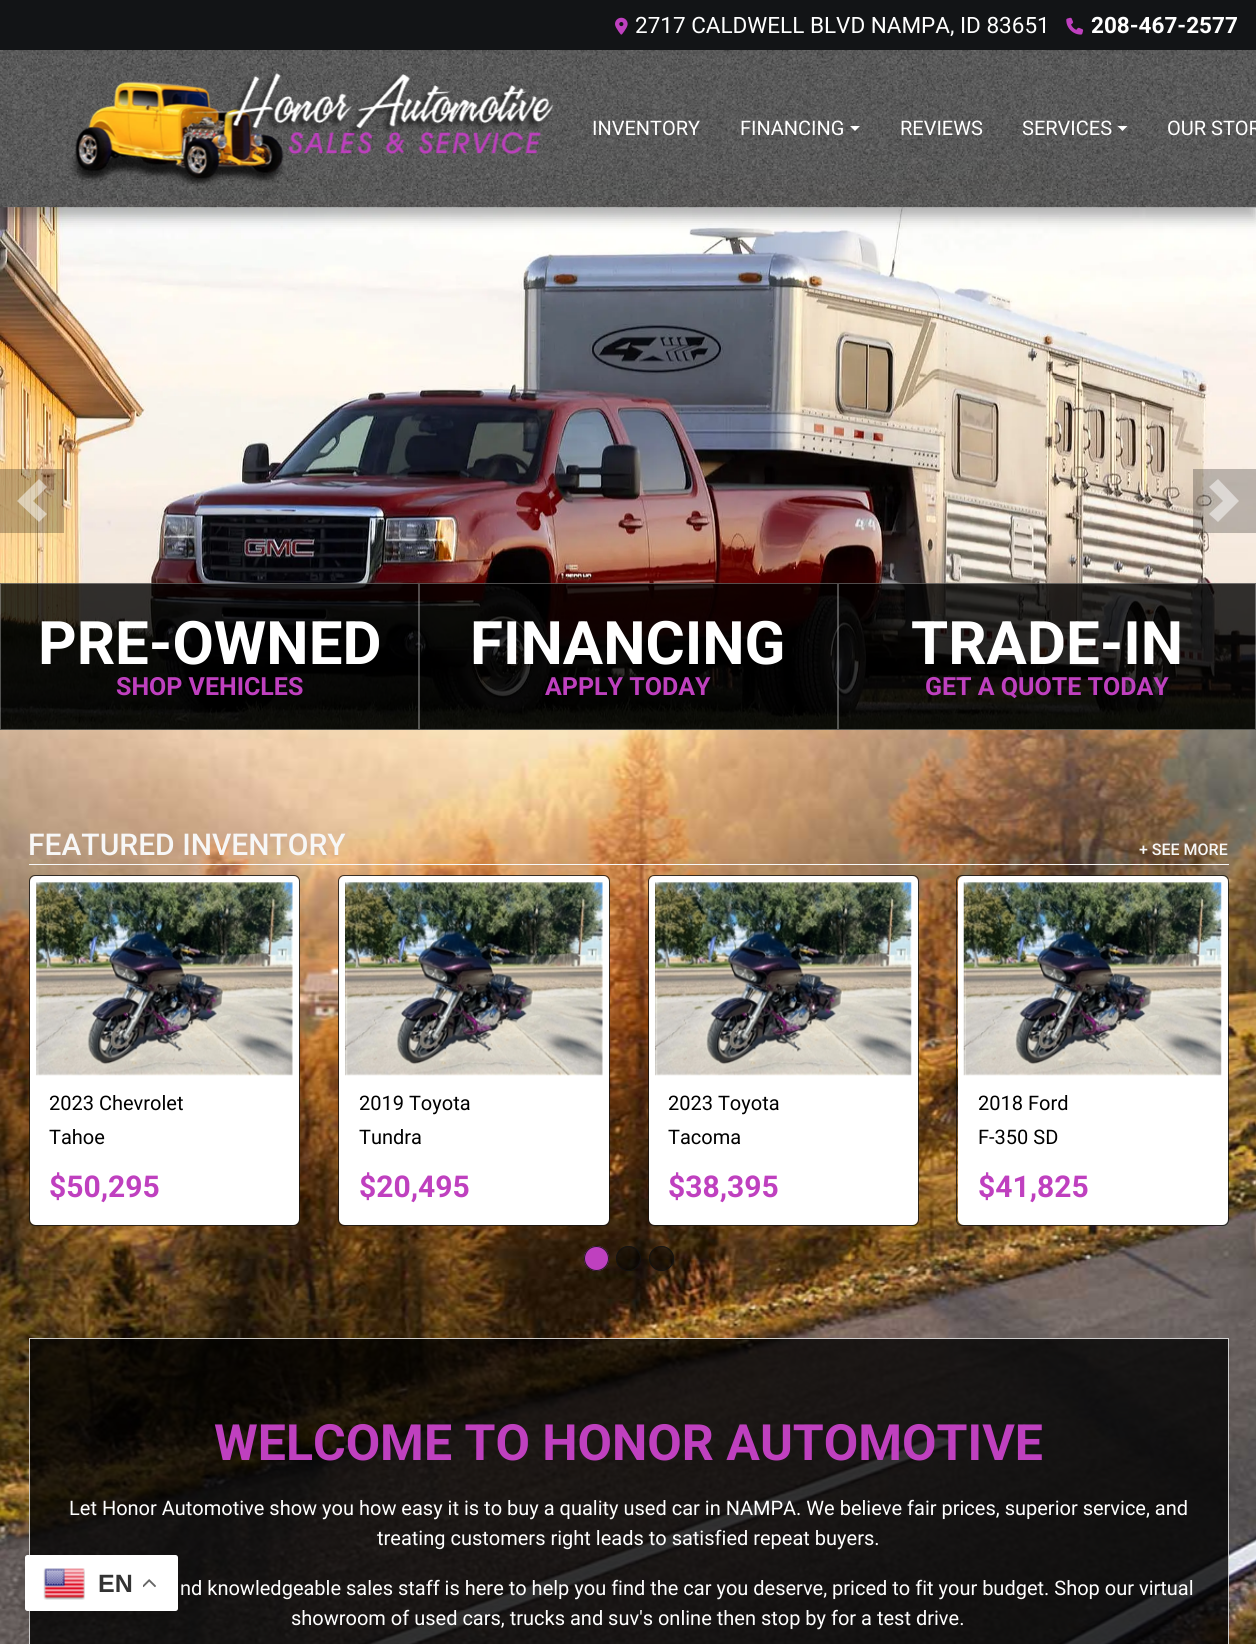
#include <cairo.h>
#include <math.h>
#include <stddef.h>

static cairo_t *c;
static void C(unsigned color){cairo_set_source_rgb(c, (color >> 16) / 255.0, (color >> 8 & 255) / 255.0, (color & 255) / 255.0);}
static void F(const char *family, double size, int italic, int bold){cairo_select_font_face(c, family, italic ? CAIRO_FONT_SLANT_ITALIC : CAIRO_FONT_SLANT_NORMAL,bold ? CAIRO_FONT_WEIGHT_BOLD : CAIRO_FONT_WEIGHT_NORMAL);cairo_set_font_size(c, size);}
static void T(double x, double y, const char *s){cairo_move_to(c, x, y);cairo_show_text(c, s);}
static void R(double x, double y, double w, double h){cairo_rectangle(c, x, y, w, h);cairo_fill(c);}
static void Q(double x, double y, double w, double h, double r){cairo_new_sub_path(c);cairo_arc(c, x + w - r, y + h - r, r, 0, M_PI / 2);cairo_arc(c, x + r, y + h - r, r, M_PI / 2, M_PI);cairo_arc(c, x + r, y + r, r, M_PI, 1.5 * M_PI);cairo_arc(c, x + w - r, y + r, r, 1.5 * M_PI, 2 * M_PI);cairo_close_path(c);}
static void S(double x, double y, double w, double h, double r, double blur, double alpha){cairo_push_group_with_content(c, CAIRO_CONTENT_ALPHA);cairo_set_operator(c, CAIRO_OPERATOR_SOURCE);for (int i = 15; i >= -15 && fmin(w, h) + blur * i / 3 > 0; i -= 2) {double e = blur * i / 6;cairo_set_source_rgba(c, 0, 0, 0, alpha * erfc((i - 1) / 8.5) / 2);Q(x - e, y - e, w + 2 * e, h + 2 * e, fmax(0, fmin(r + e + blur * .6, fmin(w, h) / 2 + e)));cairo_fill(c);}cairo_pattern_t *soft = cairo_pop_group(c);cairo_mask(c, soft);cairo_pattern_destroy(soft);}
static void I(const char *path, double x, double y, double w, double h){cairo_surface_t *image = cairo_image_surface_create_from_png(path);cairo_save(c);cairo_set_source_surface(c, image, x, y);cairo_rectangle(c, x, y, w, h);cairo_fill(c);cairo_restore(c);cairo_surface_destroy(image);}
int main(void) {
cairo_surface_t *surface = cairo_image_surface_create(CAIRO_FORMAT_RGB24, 1256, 1644);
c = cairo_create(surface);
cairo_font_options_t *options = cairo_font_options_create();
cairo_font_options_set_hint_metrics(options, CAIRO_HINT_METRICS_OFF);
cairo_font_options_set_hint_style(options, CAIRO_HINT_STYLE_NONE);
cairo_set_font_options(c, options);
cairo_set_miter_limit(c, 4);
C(0xffffff);
cairo_paint(c);
I("1.png",0,50,1256,1594);
I("6.png",0,207,1256,523);
cairo_save(c);
cairo_set_fill_rule(c,CAIRO_FILL_RULE_EVEN_ODD);
cairo_new_path(c);
cairo_move_to(c,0,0);
cairo_line_to(c,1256,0);
cairo_line_to(c,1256,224);
cairo_line_to(c,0,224);
cairo_close_path(c);
cairo_move_to(c,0,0);
cairo_line_to(c,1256,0);
cairo_line_to(c,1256,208);
cairo_line_to(c,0,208);
cairo_close_path(c);
cairo_clip(c);
C(0x000000);
S(0,6,1256,208,0,3,.1);
cairo_restore(c);
cairo_save(c);
cairo_set_fill_rule(c,CAIRO_FILL_RULE_EVEN_ODD);
cairo_new_path(c);
cairo_move_to(c,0,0);
cairo_line_to(c,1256,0);
cairo_line_to(c,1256,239);
cairo_line_to(c,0,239);
cairo_close_path(c);
cairo_move_to(c,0,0);
cairo_line_to(c,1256,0);
cairo_line_to(c,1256,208);
cairo_line_to(c,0,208);
cairo_close_path(c);
cairo_clip(c);
C(0x000000);
S(0,13,1256,207,0,6,.2);
cairo_restore(c);
I("2.png",0,50,1256,158);
C(0x121416);
R(0,0,1256,50);
I("3.png",615,17,13,18);
F("Roboto",22.5,0,0);
C(0xffffff);
T(635,33,"2717 CALDWELL BLVD NAMPA, ID 83651");
I("4.png",1066,17,18,18);
F("Roboto",22.5,0,1);
T(1091,33,"208-467-2577");
I("5.png",70,73,484,113);
F("Roboto",20,0,0);
T(592,135,"INVENTORY");
T(740,135,"FINANCING");
cairo_new_path(c);
cairo_move_to(c,850,126);
cairo_line_to(c,860,126);
cairo_line_to(c,855,131);
cairo_close_path(c);
cairo_fill(c);
T(900,135,"REVIEWS");
T(1022,135,"SERVICES");
cairo_new_path(c);
cairo_move_to(c,1117.5,126);
cairo_line_to(c,1127.5,126);
cairo_line_to(c,1122.5,131);
cairo_close_path(c);
cairo_fill(c);
T(1167,135,"OUR STOR");
cairo_set_source_rgba(c,0,0,0,0.25);
R(0,469,64,64);
cairo_set_source_rgba(c,1,1,1,0.5);
cairo_new_path(c);
cairo_move_to(c,39,479);
cairo_line_to(c,17,501);
cairo_line_to(c,39,522);
cairo_line_to(c,47,514);
cairo_line_to(c,33,501);
cairo_line_to(c,47,487);
cairo_close_path(c);
cairo_fill(c);
cairo_set_source_rgba(c,0,0,0,0.25);
R(1193,469,63,64);
cairo_set_source_rgba(c,1,1,1,0.5);
cairo_new_path(c);
cairo_move_to(c,1218,479);
cairo_line_to(c,1209,487);
cairo_line_to(c,1223,501);
cairo_line_to(c,1209,514);
cairo_line_to(c,1218,522);
cairo_line_to(c,1239,501);
cairo_close_path(c);
cairo_fill(c);
cairo_set_source_rgba(c,0,0,0,0.8);
R(0,583,419,147);
cairo_rectangle(c,.5,583.5,418,146);
cairo_set_source_rgba(c,1,1,1,0.3);
cairo_set_line_width(c,1);
cairo_stroke(c);
F("Roboto",60,0,1);
C(0xffffff);
T(38,664,"PRE-OWNED");
F("Roboto",25,0,1);
C(0xbf40bf);
T(116,695,"SHOP VEHICLES");
cairo_set_source_rgba(c,0,0,0,0.8);
R(419,583,419,147);
cairo_rectangle(c,419.5,583.5,418,146);
cairo_set_source_rgba(c,1,1,1,0.3);
cairo_stroke(c);
F("Roboto",60,0,1);
C(0xffffff);
T(470,664,"FINANCING");
F("Roboto",25,0,1);
C(0xbf40bf);
T(545,695,"APPLY TODAY");
cairo_set_source_rgba(c,0,0,0,0.8);
R(838,583,418,147);
cairo_rectangle(c,838.5,583.5,417,146);
cairo_set_source_rgba(c,1,1,1,0.3);
cairo_stroke(c);
F("Roboto",60,0,1);
C(0xffffff);
T(911,664,"TRADE-IN");
F("Roboto",25,0,1);
C(0xbf40bf);
T(925,695,"GET A QUOTE TODAY");
C(0xf7f7f7);
R(29,864,1200,1);
F("Roboto Medium",30,0,0);
T(28,855,"FEATURED INVENTORY");
F("Roboto Medium",16,0,0);
T(1139,855,"+ SEE MORE");
Q(29.5,875.5,270,350,5.5);
cairo_set_source_rgba(c,0.078,0.078,0.078,0.8);
cairo_stroke(c);
C(0xffffff);
cairo_new_path(c);
cairo_move_to(c,36,876);
cairo_line_to(c,293,876);
cairo_curve_to(c,296.5,876,299,878.5,299,882);
cairo_line_to(c,299,1081);
cairo_line_to(c,30,1081);
cairo_line_to(c,30,882);
cairo_curve_to(c,30,878.5,32.5,876,36,876);
cairo_close_path(c);
cairo_fill(c);
I("7.png",36,882,257,194);
R(30,1081,269,78);
F("Roboto",20,0,0);
C(0x000000);
T(49,1110,"2023 Chevrolet");
T(49,1144,"Tahoe");
C(0xffffff);
cairo_new_path(c);
cairo_move_to(c,30,1159);
cairo_line_to(c,299,1159);
cairo_line_to(c,299,1219);
cairo_curve_to(c,299,1222.5,296.5,1225,293,1225);
cairo_line_to(c,36,1225);
cairo_curve_to(c,32.5,1225,30,1222.5,30,1219);
cairo_close_path(c);
cairo_fill(c);
F("Roboto",30,0,1);
C(0xbf40bf);
T(49,1197,"$50,295");
Q(338.5,875.5,271,350,5.5);
cairo_set_source_rgba(c,0.078,0.078,0.078,0.8);
cairo_stroke(c);
C(0xffffff);
cairo_new_path(c);
cairo_move_to(c,345,876);
cairo_line_to(c,603,876);
cairo_curve_to(c,606.5,876,609,878.5,609,882);
cairo_line_to(c,609,1081);
cairo_line_to(c,339,1081);
cairo_line_to(c,339,882);
cairo_curve_to(c,339,878.5,341.5,876,345,876);
cairo_close_path(c);
cairo_fill(c);
I("8.png",345,882,258,194);
R(339,1081,270,78);
F("Roboto",20,0,0);
C(0x000000);
T(359,1110,"2019 Toyota");
T(359,1144,"Tundra");
C(0xffffff);
cairo_new_path(c);
cairo_move_to(c,339,1159);
cairo_line_to(c,609,1159);
cairo_line_to(c,609,1219);
cairo_curve_to(c,609,1222.5,606.5,1225,603,1225);
cairo_line_to(c,345,1225);
cairo_curve_to(c,341.5,1225,339,1222.5,339,1219);
cairo_close_path(c);
cairo_fill(c);
F("Roboto",30,0,1);
C(0xbf40bf);
T(359,1197,"$20,495");
Q(648.5,875.5,270,350,5.5);
cairo_set_source_rgba(c,0.078,0.078,0.078,0.8);
cairo_stroke(c);
C(0xffffff);
cairo_new_path(c);
cairo_move_to(c,655,876);
cairo_line_to(c,912,876);
cairo_curve_to(c,915.5,876,918,878.5,918,882);
cairo_line_to(c,918,1081);
cairo_line_to(c,649,1081);
cairo_line_to(c,649,882);
cairo_curve_to(c,649,878.5,651.5,876,655,876);
cairo_close_path(c);
cairo_fill(c);
I("9.png",655,882,257,194);
R(649,1081,269,78);
F("Roboto",20,0,0);
C(0x000000);
T(668,1110,"2023 Toyota");
T(668,1144,"Tacoma");
C(0xffffff);
cairo_new_path(c);
cairo_move_to(c,649,1159);
cairo_line_to(c,918,1159);
cairo_line_to(c,918,1219);
cairo_curve_to(c,918,1222.5,915.5,1225,912,1225);
cairo_line_to(c,655,1225);
cairo_curve_to(c,651.5,1225,649,1222.5,649,1219);
cairo_close_path(c);
cairo_fill(c);
F("Roboto",30,0,1);
C(0xbf40bf);
T(668,1197,"$38,395");
Q(956.5,875.5,272,350,5.5);
cairo_set_source_rgba(c,0.078,0.078,0.078,0.8);
cairo_stroke(c);
C(0xffffff);
cairo_new_path(c);
cairo_move_to(c,964,876);
cairo_line_to(c,1222,876);
cairo_curve_to(c,1225.5,876,1228,878.5,1228,882);
cairo_line_to(c,1228,1081);
cairo_line_to(c,958,1081);
cairo_line_to(c,958,882);
cairo_curve_to(c,958,878.5,960.5,876,964,876);
cairo_close_path(c);
cairo_fill(c);
I("10.png",963,882,259,194);
R(958,1081,270,78);
F("Roboto",20,0,0);
C(0x000000);
T(978,1110,"2018 Ford");
T(978,1144,"F-350 SD");
C(0xffffff);
cairo_new_path(c);
cairo_move_to(c,958,1159);
cairo_line_to(c,1228,1159);
cairo_line_to(c,1228,1219);
cairo_curve_to(c,1228,1222.5,1225.5,1225,1222,1225);
cairo_line_to(c,964,1225);
cairo_curve_to(c,960.5,1225,958,1222.5,958,1219);
cairo_close_path(c);
cairo_fill(c);
F("Roboto",30,0,1);
C(0xbf40bf);
T(978,1197,"$41,825");
cairo_new_path(c);
cairo_arc(c,596.5,1258.5,12.5,0,2 * M_PI);
cairo_fill(c);
cairo_arc(c,596.5,1258.5,12,0,2 * M_PI);
cairo_set_source_rgba(c,0.078,0.078,0.078,0.9);
cairo_stroke(c);
cairo_set_source_rgba(c,0,0,0,0.5);
cairo_arc(c,628.5,1258.5,12.5,0,2 * M_PI);
cairo_fill(c);
cairo_arc(c,628.5,1258.5,12,0,2 * M_PI);
cairo_set_source_rgba(c,0.078,0.078,0.078,0.9);
cairo_stroke(c);
cairo_set_source_rgba(c,0,0,0,0.5);
cairo_arc(c,661.5,1258.5,12.5,0,2 * M_PI);
cairo_fill(c);
cairo_arc(c,661.5,1258.5,12,0,2 * M_PI);
cairo_set_source_rgba(c,0.078,0.078,0.078,0.9);
cairo_stroke(c);
cairo_set_source_rgba(c,0,0,0,0.8);
R(29,1338,1200,306);
cairo_rectangle(c,29.5,1338.5,1199,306);
cairo_set_source_rgba(c,1,1,1,0.8);
cairo_stroke(c);
F("Roboto",50,0,1);
C(0xbf40bf);
T(214,1460,"WELCOME TO HONOR AUTOMOTIVE");
F("Roboto",20,0,0);
C(0xffffff);
T(69,1515,"Let Honor Automotive show you how easy it is to buy a quality used car in NAMPA. We believe fair prices, superior service, and");
T(377,1545,"treating customers right leads to satisfied repeat buyers.");
T(180,1595,"nd knowledgeable sales staff is here to help you find the car you deserve, priced to fit your budget. Shop our virtual");
T(291,1625,"showroom of used cars, trucks and suv's online then stop by for a test drive.");
C(0x000000);
S(25,1561,153,57,2.5,9.5,.15);
C(0xffffff);
Q(25,1555,153,56,2.5);
cairo_fill(c);
I("11.png",43,1568,42,32);
F("Liberation Sans",25,0,1);
C(0x333333);
T(98,1592,"EN");
I("12.png",143,1579,13,9);
cairo_surface_write_to_png(surface, "o.png");
cairo_font_options_destroy(options);
cairo_destroy(c);
cairo_surface_destroy(surface);
return 0;
}
